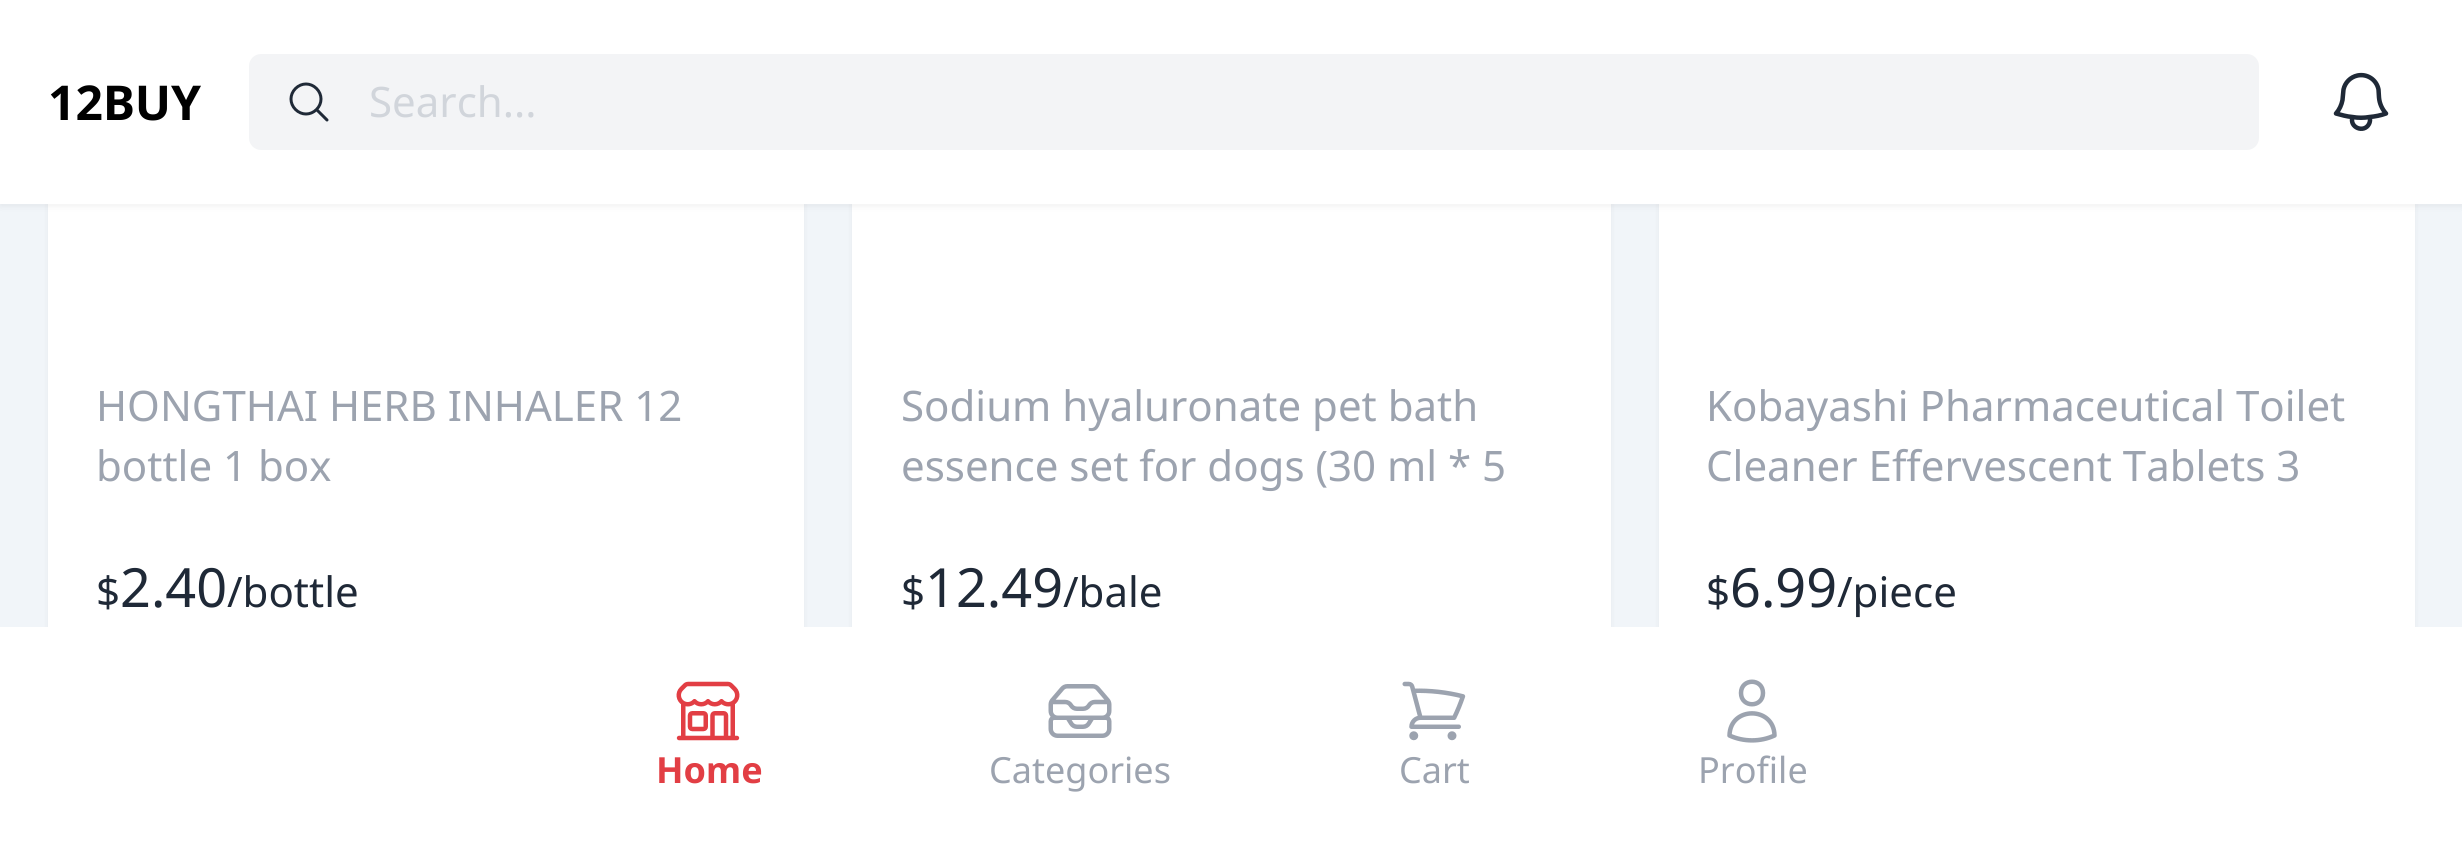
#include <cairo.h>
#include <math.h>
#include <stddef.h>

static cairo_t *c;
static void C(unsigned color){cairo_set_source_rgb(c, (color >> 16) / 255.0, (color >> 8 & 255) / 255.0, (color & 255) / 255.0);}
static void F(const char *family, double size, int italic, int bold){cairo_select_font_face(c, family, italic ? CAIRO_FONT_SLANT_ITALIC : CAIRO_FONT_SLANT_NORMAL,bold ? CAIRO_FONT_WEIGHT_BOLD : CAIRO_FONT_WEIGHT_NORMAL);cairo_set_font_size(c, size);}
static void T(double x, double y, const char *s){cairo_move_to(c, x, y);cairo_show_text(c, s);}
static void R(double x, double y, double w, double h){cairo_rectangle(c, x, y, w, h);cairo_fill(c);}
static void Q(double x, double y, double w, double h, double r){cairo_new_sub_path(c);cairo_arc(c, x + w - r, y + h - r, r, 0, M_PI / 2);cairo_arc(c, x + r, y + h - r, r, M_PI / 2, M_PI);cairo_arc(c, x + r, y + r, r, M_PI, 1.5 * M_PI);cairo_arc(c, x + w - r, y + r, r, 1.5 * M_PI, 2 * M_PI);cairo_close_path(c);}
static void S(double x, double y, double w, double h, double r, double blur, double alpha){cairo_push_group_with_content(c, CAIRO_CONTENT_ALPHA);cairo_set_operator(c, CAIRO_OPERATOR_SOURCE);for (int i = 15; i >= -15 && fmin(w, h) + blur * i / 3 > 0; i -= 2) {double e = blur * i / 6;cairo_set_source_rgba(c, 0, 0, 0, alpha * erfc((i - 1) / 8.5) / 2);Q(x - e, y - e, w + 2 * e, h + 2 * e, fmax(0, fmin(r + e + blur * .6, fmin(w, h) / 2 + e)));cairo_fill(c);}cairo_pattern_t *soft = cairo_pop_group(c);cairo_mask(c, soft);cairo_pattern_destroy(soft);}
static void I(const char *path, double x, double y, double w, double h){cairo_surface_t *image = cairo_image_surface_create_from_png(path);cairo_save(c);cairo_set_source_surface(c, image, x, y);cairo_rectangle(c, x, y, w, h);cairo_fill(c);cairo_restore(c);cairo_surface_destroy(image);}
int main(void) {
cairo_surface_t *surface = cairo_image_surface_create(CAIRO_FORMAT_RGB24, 2462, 842);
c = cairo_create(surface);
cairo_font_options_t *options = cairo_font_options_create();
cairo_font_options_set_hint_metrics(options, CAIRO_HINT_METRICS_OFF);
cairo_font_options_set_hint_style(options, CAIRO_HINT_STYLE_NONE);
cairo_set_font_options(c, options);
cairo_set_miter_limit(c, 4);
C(0xf1f5f9);
cairo_paint(c);
C(0x000000);
S(48,-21,756,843,12,3,.05);
C(0xffffff);
R(48,204,756,423);
C(0x000000);
S(852,-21,759,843,12,3,.05);
C(0xffffff);
R(852,204,759,423);
C(0x000000);
S(1659,-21,756,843,12,3,.05);
C(0xffffff);
R(1659,204,756,423);
C(0x000000);
S(0,3,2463,204,0,3,.05);
C(0xffffff);
R(0,0,2462,204);
F("Noto Sans",48,0,1);
C(0x000000);
T(48,120,"12BUY");
C(0xf3f4f6);
Q(249,54,2010,96,12);
cairo_fill(c);
cairo_new_path(c);
cairo_move_to(c,327,120);
cairo_line_to(c,316.5,109.5);
cairo_move_to(c,316.5,109.5);
cairo_curve_to(c,322.5,103.5,322.5,94.5,316.5,88.5);
cairo_curve_to(c,310.5,82.5,301.5,82.5,295.5,88.5);
cairo_curve_to(c,289.5,94.5,289.5,103.5,295.5,109.5);
cairo_curve_to(c,301.5,115.5,310.5,115.5,316.5,109.5);
cairo_close_path(c);
C(0x1f2937);
cairo_set_line_width(c,3);
cairo_set_line_cap(c,CAIRO_LINE_CAP_ROUND);
cairo_set_line_join(c,CAIRO_LINE_JOIN_ROUND);
cairo_stroke(c);
F("Noto Sans",42,0,0);
C(0xd1d5db);
T(369,117,"Search...");
cairo_new_path(c);
cairo_move_to(c,2369.5,117);
cairo_curve_to(c,2375,116.5,2380.5,115.5,2386,113.5);
cairo_curve_to(c,2382,109,2379.5,103.5,2379,97.5);
cairo_line_to(c,2378.5,89.5);
cairo_curve_to(c,2376.5,79.5,2367,73.5,2357.5,75.5);
cairo_curve_to(c,2350.5,77,2345,82.5,2343.5,89.5);
cairo_line_to(c,2342.5,100);
cairo_curve_to(c,2341.5,105,2339.5,109.5,2336,113.5);
cairo_curve_to(c,2341.5,115,2346.5,116.5,2352.5,117);
cairo_move_to(c,2369.5,117);
cairo_curve_to(c,2364,118,2358,118,2352.5,117);
cairo_move_to(c,2369.5,117);
cairo_curve_to(c,2370.5,119.5,2370,122,2369,124);
cairo_curve_to(c,2364,133.5,2349,127.5,2352.5,117);
C(0x1f2937);
cairo_set_line_width(c,4.5);
cairo_stroke(c);
C(0x9ca3af);
T(96,421,"HONGTHAI HERB INHALER 12");
T(96,481,"bottle 1 box");
C(0x1f2937);
T(96,607,"$");
F("Noto Sans",54,0,0);
T(120,607,"2.40");
F("Noto Sans",42,0,0);
T(227,607,"/bottle");
C(0x9ca3af);
T(901,421,"Sodium hyaluronate pet bath");
T(901,481,"essence set for dogs (30 ml * 5");
C(0x1f2937);
T(901,607,"$");
F("Noto Sans",54,0,0);
T(925,607,"12.49");
F("Noto Sans",42,0,0);
T(1063,607,"/bale");
C(0x9ca3af);
T(1706,421,"Kobayashi Pharmaceutical Toilet");
T(1706,481,"Cleaner Effervescent Tablets 3");
C(0x1f2937);
T(1706,607,"$");
F("Noto Sans",54,0,0);
T(1730,607,"6.99");
F("Noto Sans",42,0,0);
T(1837,607,"/piece");
C(0xffffff);
R(0,627,2462,215);
I("1.png",676,681,64,60);
F("Noto Sans",36,0,1);
C(0xe23e44);
T(656,783,"Home");
I("2.png",1048,684,64,54);
F("Noto Sans",36,0,0);
C(0x9ca3af);
T(989,783,"Categories");
I("3.png",1402,681,64,60);
T(1399,783,"Cart");
cairo_new_path(c);
cairo_move_to(c,1763,693);
cairo_curve_to(c,1763,708,1741,708,1741,693);
cairo_curve_to(c,1741,678,1763,678,1763,693);
cairo_close_path(c);
cairo_move_to(c,1729.5,735.5);
cairo_curve_to(c,1730,706,1774,706,1774.5,735.5);
cairo_curve_to(c,1760.5,742,1743.5,742,1729.5,735.5);
cairo_close_path(c);
cairo_stroke(c);
T(1698,783,"Profile");
cairo_surface_write_to_png(surface, "o.png");
cairo_font_options_destroy(options);
cairo_destroy(c);
cairo_surface_destroy(surface);
return 0;
}
